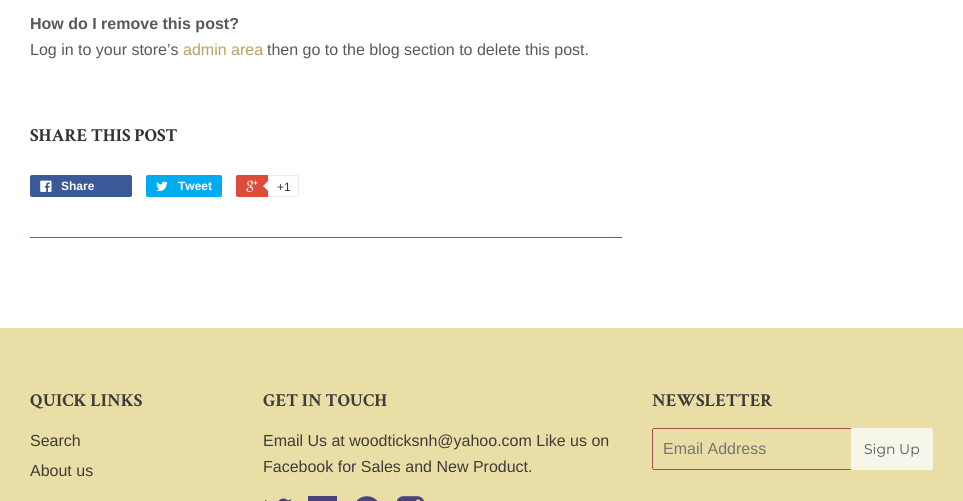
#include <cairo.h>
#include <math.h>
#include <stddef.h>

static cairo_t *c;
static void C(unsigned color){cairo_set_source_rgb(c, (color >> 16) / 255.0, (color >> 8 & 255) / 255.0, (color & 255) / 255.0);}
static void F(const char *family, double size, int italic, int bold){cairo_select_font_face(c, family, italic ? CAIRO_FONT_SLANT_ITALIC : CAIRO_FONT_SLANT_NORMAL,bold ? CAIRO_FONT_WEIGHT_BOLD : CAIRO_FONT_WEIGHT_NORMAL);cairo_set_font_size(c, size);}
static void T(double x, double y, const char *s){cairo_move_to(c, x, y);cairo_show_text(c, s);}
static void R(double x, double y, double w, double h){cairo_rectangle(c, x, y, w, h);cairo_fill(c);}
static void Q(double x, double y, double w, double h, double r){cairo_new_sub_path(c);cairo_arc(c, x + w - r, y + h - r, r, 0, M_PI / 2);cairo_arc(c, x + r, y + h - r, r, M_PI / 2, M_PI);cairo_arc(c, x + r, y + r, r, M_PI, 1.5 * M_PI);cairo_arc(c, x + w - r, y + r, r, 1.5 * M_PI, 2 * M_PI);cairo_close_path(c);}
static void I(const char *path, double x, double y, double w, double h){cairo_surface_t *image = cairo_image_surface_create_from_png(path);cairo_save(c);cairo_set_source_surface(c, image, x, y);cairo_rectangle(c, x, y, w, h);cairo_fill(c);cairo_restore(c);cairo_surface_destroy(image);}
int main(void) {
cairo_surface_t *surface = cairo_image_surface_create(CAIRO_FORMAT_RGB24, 963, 501);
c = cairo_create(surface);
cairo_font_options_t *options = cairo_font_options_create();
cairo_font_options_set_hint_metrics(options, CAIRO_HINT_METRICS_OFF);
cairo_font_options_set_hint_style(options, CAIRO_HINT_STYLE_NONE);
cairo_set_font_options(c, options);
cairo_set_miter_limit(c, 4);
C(0xffffff);
cairo_paint(c);
F("Liberation Sans",16,0,1);
C(0x585858);
T(30,29,"How do I remove this post?");
F("Liberation Sans",16,0,0);
T(30,55,"Log in to your store’s");
C(0xbd9f5f);
T(183,55,"admin area");
C(0x585858);
T(267,55,"then go to the blog section to delete this post.");
F("Crimson Text",18.25,0,1);
C(0x333333);
T(30,141,"SHARE THIS POST");
C(0x3b5998);
Q(30,175,102,22,2);
cairo_fill(c);
I("1.png",40,180,12,12);
F("Liberation Sans",12,0,1);
C(0xffffff);
T(61,190,"Share");
C(0x00aced);
Q(146,175,76,22,2);
cairo_fill(c);
I("2.png",156,181,12,10);
C(0xffffff);
T(178,190,"Tweet");
C(0xdd4b39);
Q(236,175,61,22,2);
cairo_fill(c);
I("3.png",246,180,12,12);
C(0xffffff);
cairo_new_path(c);
cairo_move_to(c,268.5,175.5);
cairo_line_to(c,297,175.5);
cairo_curve_to(c,298,175.5,298.5,176,298.5,177);
cairo_line_to(c,298.5,195);
cairo_curve_to(c,298.5,196,298,196.5,297,196.5);
cairo_line_to(c,268.5,196.5);
cairo_close_path(c);
cairo_fill_preserve(c);
C(0xececec);
cairo_set_line_width(c,1);
cairo_stroke(c);
cairo_new_path(c);
cairo_move_to(c,269,180);
cairo_line_to(c,269,192);
cairo_line_to(c,263,186);
cairo_close_path(c);
cairo_fill(c);
C(0xffffff);
cairo_new_path(c);
cairo_move_to(c,270,180);
cairo_line_to(c,270,192);
cairo_line_to(c,264,186);
cairo_close_path(c);
cairo_fill(c);
F("Liberation Sans",12,0,0);
C(0x333333);
T(277,191,"+1");
C(0xa84e4e);
R(30,237,592,1);
C(0xe9dea6);
R(0,328,963,173);
F("Crimson Text",18.25,0,1);
C(0x3e3b3b);
T(30,406,"QUICK LINKS");
F("Liberation Sans",16,0,0);
T(30,446,"Search");
T(30,476,"About us");
F("Crimson Text",18.25,0,1);
T(263,406,"GET IN TOUCH");
F("Liberation Sans",16,0,0);
T(263,446,"Email Us at woodticksnh@yahoo.com Like us on");
T(263,472,"Facebook for Sales and New Product.");
I("4.png",265,498,27,3);
C(0x4a4278);
R(308,496,29,5);
I("5.png",356,496,22,5);
I("6.png",396,496,28,5);
F("Crimson Text",18.25,0,1);
C(0x3e3b3b);
T(652,406,"NEWSLETTER");
C(0xa84e4e);
R(653,428,198,1);
R(653,469,198,1);
R(652,429,1,40);
F("Liberation Sans",16,0,0);
C(0x757575);
T(663,454,"Email Address");
C(0xf6f6ea);
cairo_new_path(c);
cairo_move_to(c,851,428);
cairo_line_to(c,931,428);
cairo_curve_to(c,932,428,933,429,933,430);
cairo_line_to(c,933,468);
cairo_curve_to(c,933,469,932,470,931,470);
cairo_line_to(c,851,470);
cairo_close_path(c);
cairo_fill(c);
F("Montserrat Thin",14,0,0);
C(0x585858);
T(864,454,"Sign Up");
cairo_surface_write_to_png(surface, "o.png");
cairo_font_options_destroy(options);
cairo_destroy(c);
cairo_surface_destroy(surface);
return 0;
}
